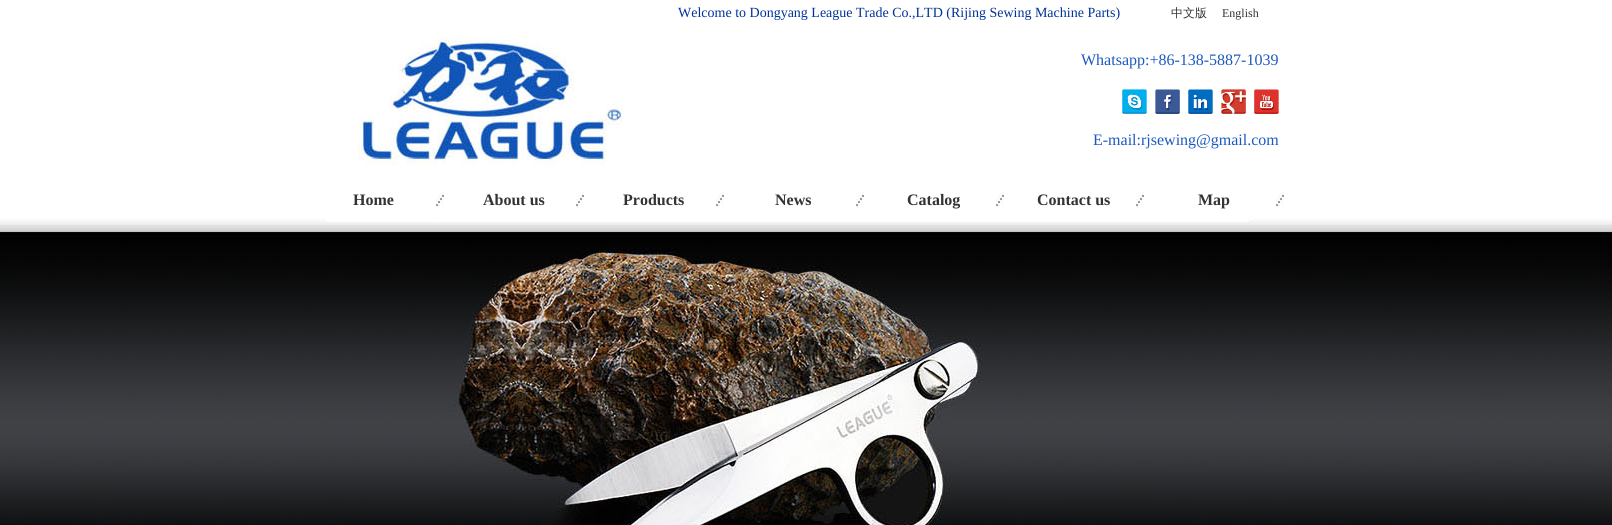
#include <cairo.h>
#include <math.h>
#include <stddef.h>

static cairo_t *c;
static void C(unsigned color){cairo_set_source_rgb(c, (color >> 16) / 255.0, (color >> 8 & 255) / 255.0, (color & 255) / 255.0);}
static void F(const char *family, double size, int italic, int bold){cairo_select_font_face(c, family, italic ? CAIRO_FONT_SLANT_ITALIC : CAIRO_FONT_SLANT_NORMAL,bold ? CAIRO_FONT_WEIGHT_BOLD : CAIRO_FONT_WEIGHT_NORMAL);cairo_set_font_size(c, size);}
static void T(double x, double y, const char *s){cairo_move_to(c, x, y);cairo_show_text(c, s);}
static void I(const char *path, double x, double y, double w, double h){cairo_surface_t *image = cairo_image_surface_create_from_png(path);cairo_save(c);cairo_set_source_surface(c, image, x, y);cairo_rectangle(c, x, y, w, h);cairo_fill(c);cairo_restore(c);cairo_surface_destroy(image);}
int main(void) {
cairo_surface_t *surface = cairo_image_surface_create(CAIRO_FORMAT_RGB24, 1612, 525);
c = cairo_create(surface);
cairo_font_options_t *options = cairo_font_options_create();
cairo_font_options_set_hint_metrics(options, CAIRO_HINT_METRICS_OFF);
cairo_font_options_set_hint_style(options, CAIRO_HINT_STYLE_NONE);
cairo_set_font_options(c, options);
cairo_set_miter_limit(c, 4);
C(0xffffff);
cairo_paint(c);
I("1.png",0,0,1612,232);
F("Liberation Serif",14,0,0);
C(0x003399);
T(678,17,"Welcome to Dongyang League Trade Co.,LTD (Rijing Sewing Machine Parts)");
F("WenQuanYi Zen Hei Medium",12,0,0);
C(0x333333);
T(1171,17,"中文版");
F("Liberation Serif",12,0,0);
T(1222,17,"English");
F("Liberation Serif",16,0,0);
C(0x1b59c0);
T(1081,65,"Whatsapp:+86-138-5887-1039");
I("2.png",1122,89,25,25);
I("3.png",1155,89,25,25);
I("4.png",1188,89,25,25);
I("5.png",1221,89,25,25);
I("6.png",1254,89,25,25);
T(1093,145,"E-mail:rjsewing@gmail.com");
I("7.png",436,192,8,16);
F("Liberation Serif",16,0,1);
C(0x333333);
T(353,205,"Home");
I("7.png",576,192,8,16);
T(483,205,"About us");
I("7.png",716,192,8,16);
T(623,205,"Products");
I("7.png",856,192,8,16);
T(775,205,"News");
I("7.png",996,192,8,16);
T(907,205,"Catalog");
I("7.png",1136,192,8,16);
T(1037,205,"Contact us");
I("7.png",1276,192,8,16);
T(1198,205,"Map");
I("8.png",0,232,1612,293);
cairo_surface_write_to_png(surface, "o.png");
cairo_font_options_destroy(options);
cairo_destroy(c);
cairo_surface_destroy(surface);
return 0;
}
